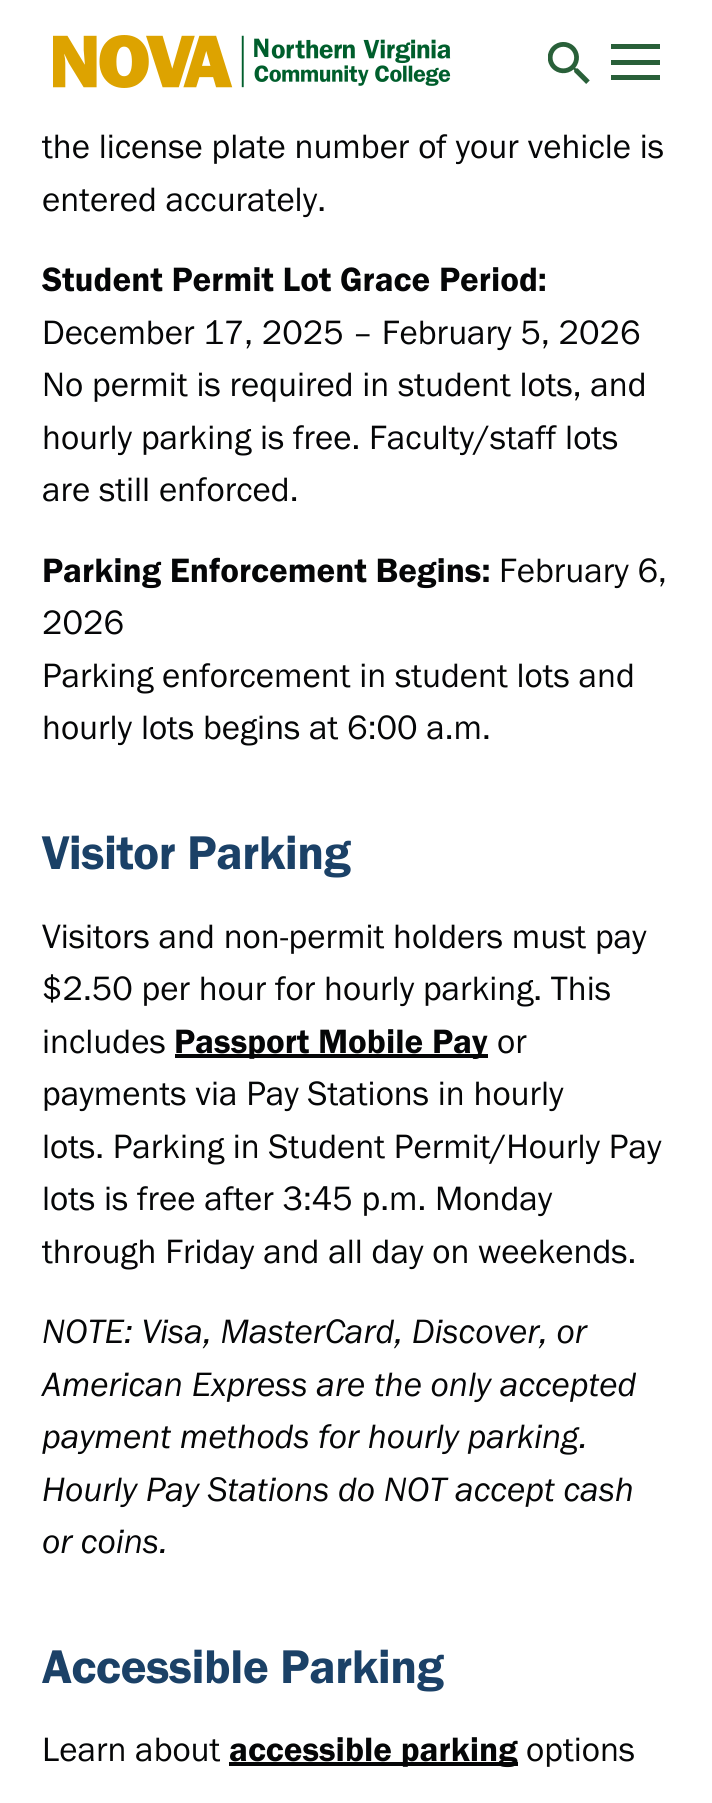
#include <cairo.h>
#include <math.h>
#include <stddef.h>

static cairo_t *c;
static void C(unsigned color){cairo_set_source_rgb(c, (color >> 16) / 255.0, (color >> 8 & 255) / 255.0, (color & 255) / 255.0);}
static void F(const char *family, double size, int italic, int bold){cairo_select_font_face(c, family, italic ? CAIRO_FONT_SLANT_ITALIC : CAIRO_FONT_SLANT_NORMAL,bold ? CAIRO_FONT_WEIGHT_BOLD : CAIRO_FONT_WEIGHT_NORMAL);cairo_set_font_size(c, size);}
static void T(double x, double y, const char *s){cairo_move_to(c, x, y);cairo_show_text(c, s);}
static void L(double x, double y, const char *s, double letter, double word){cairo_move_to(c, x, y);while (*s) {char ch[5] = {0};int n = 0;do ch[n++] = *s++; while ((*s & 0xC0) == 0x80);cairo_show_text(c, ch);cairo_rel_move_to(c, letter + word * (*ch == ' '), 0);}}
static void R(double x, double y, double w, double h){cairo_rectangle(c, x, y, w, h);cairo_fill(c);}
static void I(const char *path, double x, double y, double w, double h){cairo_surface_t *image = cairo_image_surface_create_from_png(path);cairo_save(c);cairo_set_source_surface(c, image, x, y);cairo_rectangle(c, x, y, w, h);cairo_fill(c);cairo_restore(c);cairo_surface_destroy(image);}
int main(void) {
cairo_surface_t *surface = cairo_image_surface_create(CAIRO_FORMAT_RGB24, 712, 1803);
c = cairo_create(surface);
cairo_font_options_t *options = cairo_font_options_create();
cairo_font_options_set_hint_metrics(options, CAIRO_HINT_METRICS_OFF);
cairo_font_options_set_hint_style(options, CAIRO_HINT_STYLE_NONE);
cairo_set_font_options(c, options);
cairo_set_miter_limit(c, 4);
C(0xffffff);
cairo_paint(c);
I("1.png",53,35,398,53);
I("2.png",548,42,42,42);
C(0x296039);
R(611,60,49,5);
R(611,44,49,5);
R(611,75,49,5);
F("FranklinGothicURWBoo",35,0,0);
C(0x050607);
T(42,158,"the license plate number of your vehicle is");
T(42,211,"entered accurately.");
F("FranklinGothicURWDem",35,0,0);
T(42,291,"Student Permit Lot Grace Period:");
F("FranklinGothicURWBoo",35,0,0);
T(42,344,"December 17, 2025 – February 5, 2026");
T(42,396,"No permit is required in student lots, and");
T(42,449,"hourly parking is free. Faculty/staff lots");
T(42,501,"are still enforced.");
F("FranklinGothicURWDem",35,0,0);
T(42,582,"Parking Enforcement Begins:");
F("FranklinGothicURWBoo",35,0,0);
T(499,582,"February 6,");
T(42,634,"2026");
T(42,687,"Parking enforcement in student lots and");
T(42,739,"hourly lots begins at 6:00 a.m.");
F("FranklinGothicURWDem",49,0,0);
C(0x1b4167);
L(42,869,"Visitor Parking",-.5,0);
F("FranklinGothicURWBoo",35,0,0);
C(0x050607);
T(42,948,"Visitors and non-permit holders must pay");
T(42,1000,"$2.50 per hour for hourly parking. This");
T(42,1053,"includes");
R(175,1054,313,4);
F("FranklinGothicURWDem",35,0,0);
T(174,1053,"Passport Mobile Pay");
F("FranklinGothicURWBoo",35,0,0);
T(497,1053,"or");
T(42,1105,"payments via Pay Stations in hourly");
T(42,1158,"lots. Parking in Student Permit/Hourly Pay");
T(42,1210,"lots is free after 3:45 p.m. Monday");
T(42,1263,"through Friday and all day on weekends.");
F("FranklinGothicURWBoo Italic",35,1,0);
T(42,1343,"NOTE: Visa, MasterCard, Discover, or");
T(42,1396,"American Express are the only accepted");
T(42,1448,"payment methods for hourly parking.");
T(42,1501,"Hourly Pay Stations do NOT accept cash");
T(42,1553,"or coins.");
F("FranklinGothicURWDem",49,0,0);
C(0x1b4167);
L(42,1683,"Accessible Parking",-.5,0);
F("FranklinGothicURWBoo",35,0,0);
C(0x050607);
T(42,1761,"Learn about");
R(229,1762,289,4);
F("FranklinGothicURWDem",35,0,0);
T(229,1761,"accessible parking");
F("FranklinGothicURWBoo",35,0,0);
T(526,1761,"options");
cairo_surface_write_to_png(surface, "o.png");
cairo_font_options_destroy(options);
cairo_destroy(c);
cairo_surface_destroy(surface);
return 0;
}
